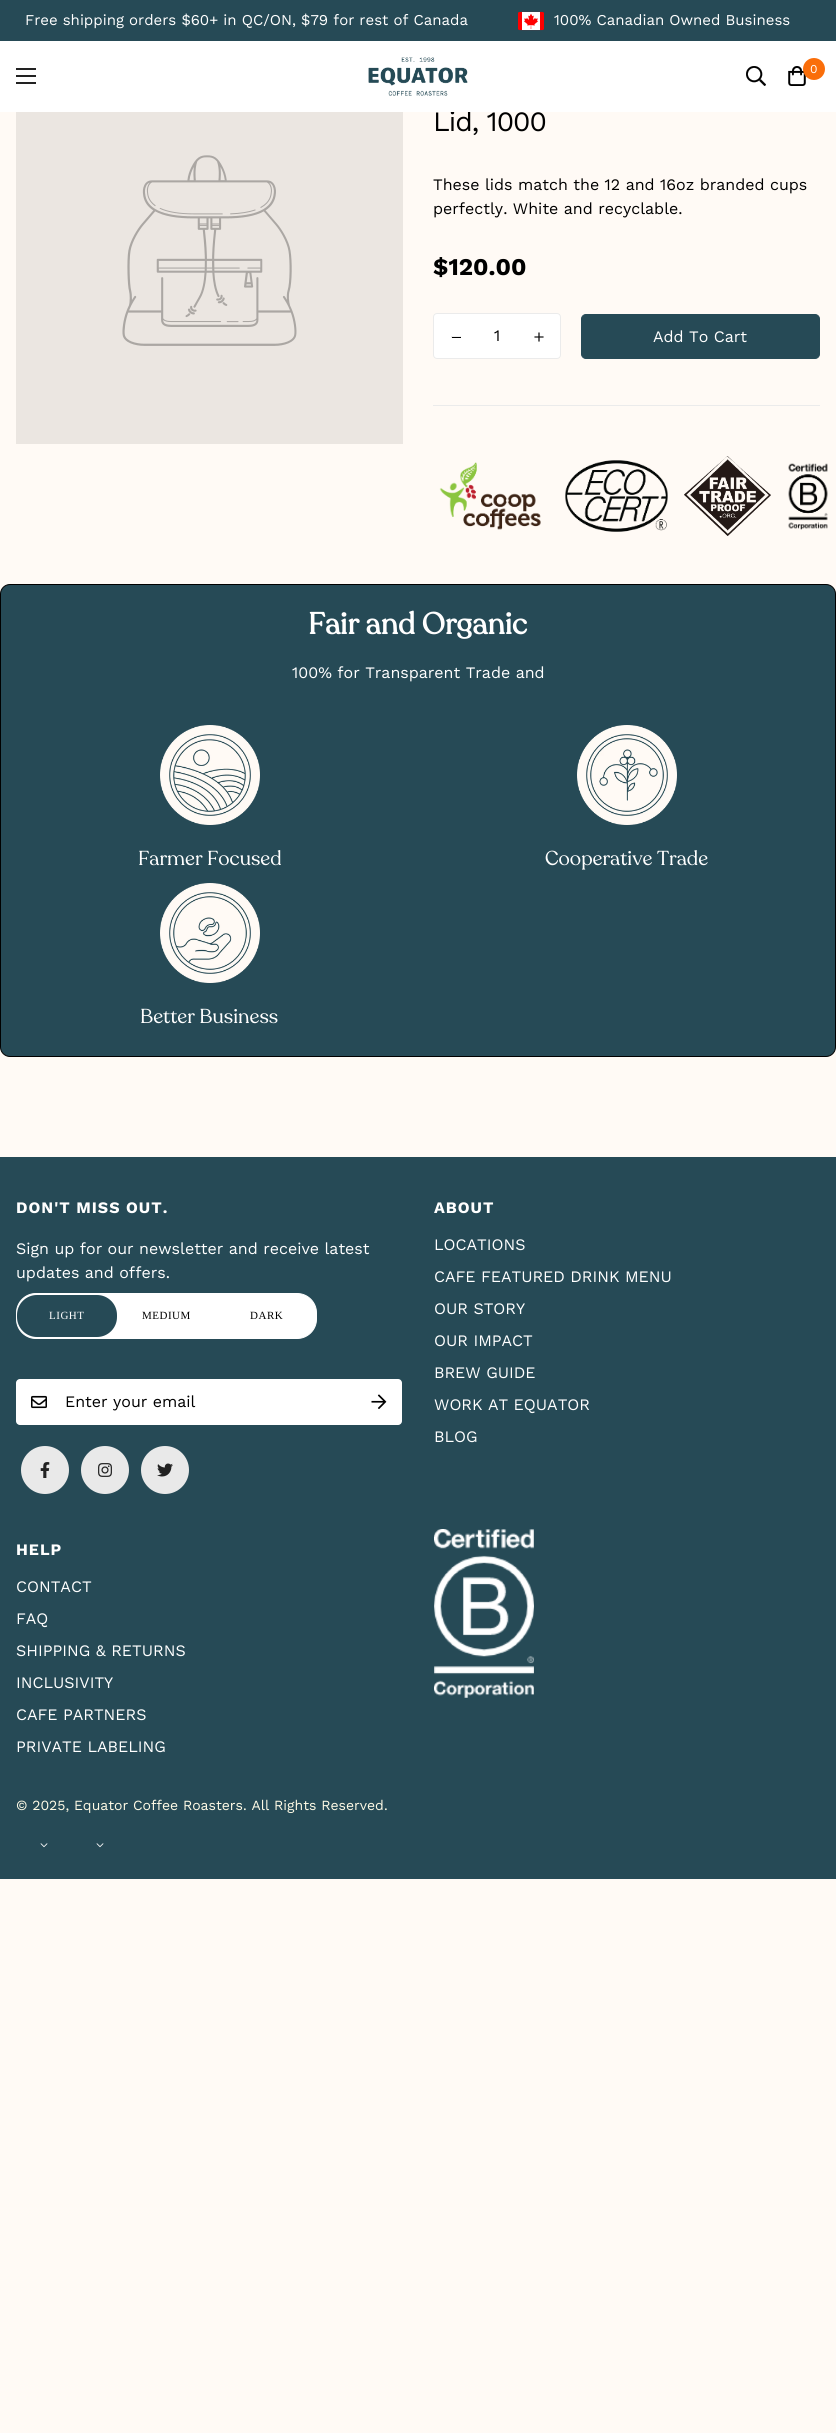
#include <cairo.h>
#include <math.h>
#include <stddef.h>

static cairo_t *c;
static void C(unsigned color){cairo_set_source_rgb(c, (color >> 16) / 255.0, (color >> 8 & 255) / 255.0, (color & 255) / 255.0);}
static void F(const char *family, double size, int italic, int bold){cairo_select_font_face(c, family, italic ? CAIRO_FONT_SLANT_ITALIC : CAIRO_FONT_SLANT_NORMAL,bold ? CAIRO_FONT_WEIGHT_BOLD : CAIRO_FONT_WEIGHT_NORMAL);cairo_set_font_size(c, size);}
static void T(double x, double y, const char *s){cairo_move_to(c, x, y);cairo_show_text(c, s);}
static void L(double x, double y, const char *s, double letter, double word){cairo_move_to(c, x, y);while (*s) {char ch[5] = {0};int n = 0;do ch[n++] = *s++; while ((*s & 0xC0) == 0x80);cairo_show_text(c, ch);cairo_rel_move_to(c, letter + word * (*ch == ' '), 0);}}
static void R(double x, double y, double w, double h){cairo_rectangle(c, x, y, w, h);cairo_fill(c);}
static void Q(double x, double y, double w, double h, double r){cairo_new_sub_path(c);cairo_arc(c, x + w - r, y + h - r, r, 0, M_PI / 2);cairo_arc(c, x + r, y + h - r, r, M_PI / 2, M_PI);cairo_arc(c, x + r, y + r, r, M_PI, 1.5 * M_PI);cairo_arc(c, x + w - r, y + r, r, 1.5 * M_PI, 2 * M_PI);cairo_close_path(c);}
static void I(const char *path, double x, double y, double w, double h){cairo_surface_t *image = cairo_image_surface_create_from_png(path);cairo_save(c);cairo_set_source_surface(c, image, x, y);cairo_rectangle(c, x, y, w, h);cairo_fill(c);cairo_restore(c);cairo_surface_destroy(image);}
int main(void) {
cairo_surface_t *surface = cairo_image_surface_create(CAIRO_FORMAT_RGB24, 836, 2433);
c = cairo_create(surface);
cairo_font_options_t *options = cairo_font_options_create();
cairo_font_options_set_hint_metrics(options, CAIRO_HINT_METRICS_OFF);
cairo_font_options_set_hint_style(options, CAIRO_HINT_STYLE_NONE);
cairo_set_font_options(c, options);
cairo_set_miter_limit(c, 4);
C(0xfffaf5);
cairo_paint(c);
C(0x264a56);
R(0,0,836,41);
F("Work Sans",15,0,0);
C(0xffffff);
T(25,25,"Free shipping orders $60+ in QC/ON, $79 for rest of Canada");
I("1.png",518,11,26,20);
T(554,25,"100% Canadian Owned Business");
F("Work Sans",28,0,0);
C(0x000000);
L(433,131,"Lid, 1000",-1,0);
C(0xffffff);
R(0,41,836,71);
C(0x222222);
R(16,75,20,2);
R(16,68,20,2);
R(16,82,20,2);
I("2.png",368,57,100,39);
I("3.png",746,66,20,20);
I("4.png",788,66,18,20);
C(0xfa6e0a);
cairo_arc(c,814,69,11,0,2 * M_PI);
cairo_fill(c);
F("Work Sans",12,0,0);
C(0xffffff);
T(810,73,"0");
C(0xebe6e1);
R(16,112,387,332);
I("5.png",122,155,175,191);
F("Work Sans",16,0,0);
C(0x000000);
T(433,190,"These lids match the 12 and 16oz branded cups");
T(433,214,"perfectly. White and recyclable.");
F("Work Sans",24,0,1);
T(433,275,"$120.00");
C(0xffffff);
Q(433.5,313.5,127,45,3.5);
cairo_fill_preserve(c);
C(0xebebeb);
cairo_set_line_width(c,1);
cairo_stroke(c);
I("6.png",451,336,10,2);
F("Work Sans",16,0,0);
C(0x000000);
T(494,341,"1");
I("7.png",534,332,10,10);
C(0x264a56);
Q(581.5,314.5,238,44,4.5);
cairo_fill_preserve(c);
cairo_stroke(c);
C(0xffffff);
T(653,342,"Add To Cart");
C(0xebebeb);
R(433,405,387,1);
I("8.png",439,462,102,68);
I("9.png",565,460,103,72);
I("10.png",684,456,87,80);
I("11.png",788,463,40,67);
C(0x264a56);
Q(.5,584.5,835,472,9.5);
cairo_fill_preserve(c);
C(0x000000);
cairo_stroke(c);
F("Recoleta",30,0,1);
C(0xffffff);
T(308,634,"Fair and Organic");
F("Work Sans",16,0,0);
T(292,678,"100% for Transparent Trade and");
I("12.png",160,725,100,100);
F("Recoleta",20,0,0);
T(138,865,"Farmer Focused");
I("13.png",577,725,100,100);
T(545,865,"Cooperative Trade");
I("14.png",160,883,100,100);
T(140,1023,"Better Business");
C(0x264a56);
R(0,1157,836,722);
F("Work Sans",16,0,1);
C(0xffffff);
L(16,1213,"DON'T MISS OUT.",1,0);
F("Work Sans",16,0,0);
T(16,1254,"Sign up for our newsletter and receive latest");
T(16,1278,"updates and offers.");
Q(16.5,1293.5,300,45,19.5);
cairo_fill_preserve(c);
cairo_stroke(c);
C(0x264a56);
Q(17,1295,100,42,20);
cairo_fill(c);
F("Liberation Serif",11,0,0);
C(0xffffff);
L(49,1319,"LIGHT",.5,0);
C(0x000000);
L(142,1319,"MEDIUM",.5,0);
L(250,1319,"DARK",.5,0);
C(0xffffff);
Q(16,1379,386,46,4);
cairo_fill(c);
I("15.png",31,1395,16,14);
F("Work Sans",16,0,0);
C(0x000000);
T(65,1407,"Enter your email");
I("16.png",371,1394,16,15);
C(0xe9e9e9);
cairo_arc(c,45,1470,24,0,2 * M_PI);
cairo_fill(c);
I("17.png",40,1462,10,16);
cairo_arc(c,105,1470,24,0,2 * M_PI);
cairo_fill(c);
I("18.png",98,1463,14,14);
cairo_arc(c,165,1470,24,0,2 * M_PI);
cairo_fill(c);
I("19.png",157,1463,16,14);
F("Work Sans",16,0,1);
C(0xffffff);
L(434,1213,"ABOUT",1,0);
F("Work Sans",16,0,0);
T(434,1250,"LOCATIONS");
T(434,1282,"CAFE FEATURED DRINK MENU");
T(434,1314,"OUR STORY");
T(434,1346,"OUR IMPACT");
T(434,1378,"BREW GUIDE");
T(434,1410,"WORK AT EQUATOR");
T(434,1442,"BLOG");
F("Work Sans",16,0,1);
L(16,1555,"HELP",1,0);
F("Work Sans",16,0,0);
T(16,1592,"CONTACT");
T(16,1624,"FAQ");
T(16,1656,"SHIPPING & RETURNS");
T(16,1688,"INCLUSIVITY");
T(16,1720,"CAFE PARTNERS");
T(16,1752,"PRIVATE LABELING");
I("20.png",434,1529,100,169);
F("Work Sans",14,0,0);
C(0xfffbe6);
T(16,1810,"© 2025, Equator Coffee Roasters. All Rights Reserved.");
I("21.png",40,1843,8,5);
I("21.png",96,1843,8,5);
cairo_surface_write_to_png(surface, "o.png");
cairo_font_options_destroy(options);
cairo_destroy(c);
cairo_surface_destroy(surface);
return 0;
}
